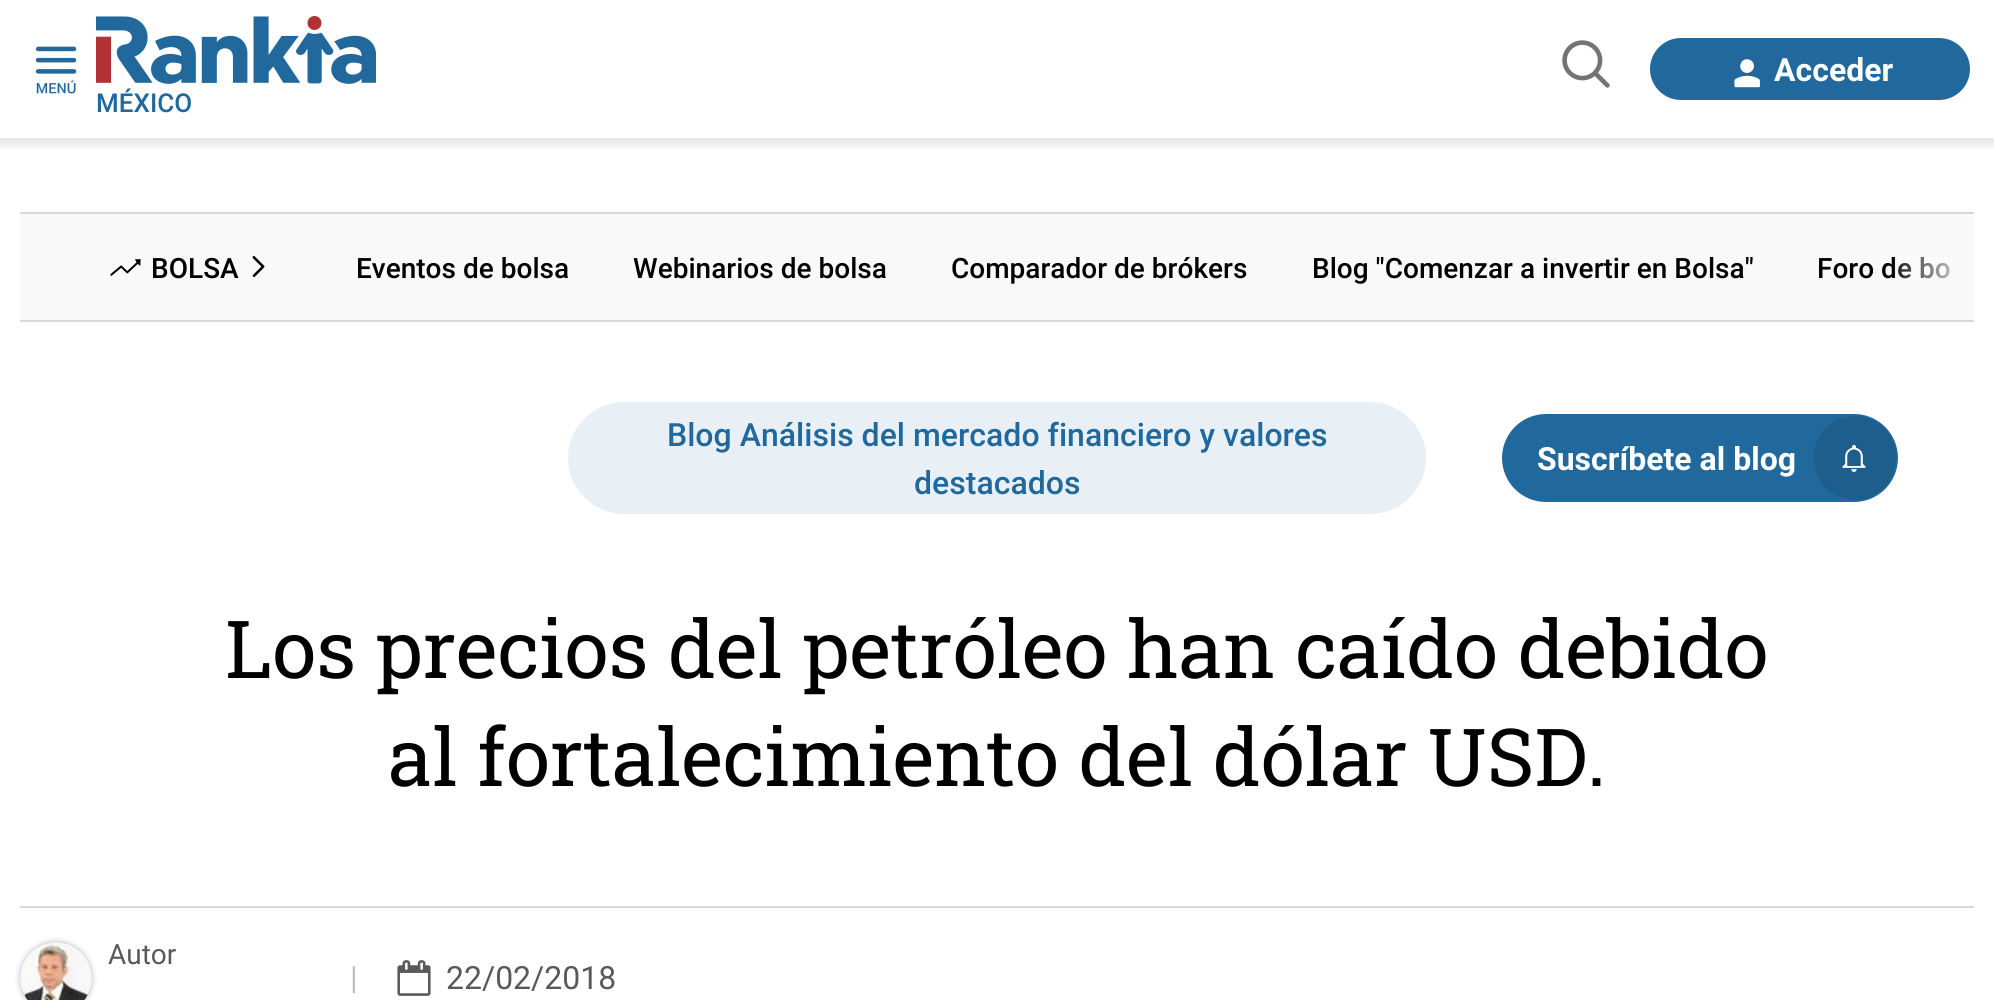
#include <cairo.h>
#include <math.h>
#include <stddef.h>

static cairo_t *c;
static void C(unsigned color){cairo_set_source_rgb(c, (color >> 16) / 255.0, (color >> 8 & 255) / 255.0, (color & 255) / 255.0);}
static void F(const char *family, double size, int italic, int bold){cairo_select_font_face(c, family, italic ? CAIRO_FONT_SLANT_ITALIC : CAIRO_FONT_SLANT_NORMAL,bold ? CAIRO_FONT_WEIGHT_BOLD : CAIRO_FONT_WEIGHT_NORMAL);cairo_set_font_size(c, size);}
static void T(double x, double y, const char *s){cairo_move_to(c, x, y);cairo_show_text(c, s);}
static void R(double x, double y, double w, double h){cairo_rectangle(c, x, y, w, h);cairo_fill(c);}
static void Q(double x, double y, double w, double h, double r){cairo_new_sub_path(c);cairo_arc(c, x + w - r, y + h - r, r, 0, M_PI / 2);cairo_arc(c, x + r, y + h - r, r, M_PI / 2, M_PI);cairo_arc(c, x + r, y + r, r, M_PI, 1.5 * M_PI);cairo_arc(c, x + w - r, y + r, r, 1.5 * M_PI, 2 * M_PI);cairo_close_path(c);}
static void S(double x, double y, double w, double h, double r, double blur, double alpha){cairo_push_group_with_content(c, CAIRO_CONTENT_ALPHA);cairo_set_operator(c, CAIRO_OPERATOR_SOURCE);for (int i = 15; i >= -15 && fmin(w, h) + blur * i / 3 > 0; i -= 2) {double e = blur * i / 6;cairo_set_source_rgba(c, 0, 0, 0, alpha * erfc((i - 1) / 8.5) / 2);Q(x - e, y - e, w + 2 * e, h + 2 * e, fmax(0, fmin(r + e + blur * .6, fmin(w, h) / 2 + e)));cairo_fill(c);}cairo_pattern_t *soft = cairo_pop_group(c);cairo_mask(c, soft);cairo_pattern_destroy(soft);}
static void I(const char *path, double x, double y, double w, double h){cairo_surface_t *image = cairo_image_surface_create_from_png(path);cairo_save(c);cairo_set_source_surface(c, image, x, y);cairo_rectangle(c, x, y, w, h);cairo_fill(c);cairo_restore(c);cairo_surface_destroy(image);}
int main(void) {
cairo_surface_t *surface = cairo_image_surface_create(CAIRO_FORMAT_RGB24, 1994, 1000);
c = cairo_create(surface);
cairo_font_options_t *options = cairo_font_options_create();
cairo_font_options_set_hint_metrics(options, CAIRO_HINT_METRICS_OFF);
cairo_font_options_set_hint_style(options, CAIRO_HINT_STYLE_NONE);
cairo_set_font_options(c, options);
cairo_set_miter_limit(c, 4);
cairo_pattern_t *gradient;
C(0xffffff);
cairo_paint(c);
cairo_save(c);
cairo_rectangle(c,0,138,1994,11);
cairo_clip(c);
C(0x000000);
S(-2,2,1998,142,0,5,.12);
cairo_restore(c);
I("1.png",1562,40,48,48);
C(0x21689d);
Q(1652,40,316,58,29);
cairo_fill_preserve(c);
cairo_set_line_width(c,4);
cairo_stroke(c);
I("2.png",1734,59,26,29);
F("Roboto",32,0,1);
C(0xffffff);
T(1774,81,"Acceder");
I("3.png",35,46,42,48);
I("4.png",96,16,280,68);
F("Roboto Medium",26,0,0);
C(0x21689d);
T(96,112,"MÉXICO");
C(0xf9f9f9);
R(20,214,1954,106);
C(0xd9d9d9);
R(20,212,1954,2);
R(20,320,1954,2);
I("5.png",110,259,31,17);
F("Roboto Medium",28,0,0);
C(0x000000);
T(151,278,"BOLSA");
I("6.png",252,256,13,21);
T(356,278,"Eventos de bolsa");
T(633,278,"Webinarios de bolsa");
T(951,278,"Comparador de brókers");
T(1312,278,"Blog \"Comenzar a invertir en Bolsa\"");
T(1817,278,"Foro de bo");
gradient = cairo_pattern_create_linear(1974,262,1894,262);
cairo_pattern_add_color_stop_rgba(gradient,0,0.976,0.976,0.976,1);
cairo_pattern_add_color_stop_rgba(gradient,1,1,1,1,.1);
cairo_set_source(c,gradient);
cairo_pattern_destroy(gradient);
R(1894,257,56,22);
C(0xe9f0f5);
Q(568,402,858,112,56);
cairo_fill(c);
F("Roboto Medium",32,0,0);
C(0x21689d);
T(667,446,"Blog Análisis del mercado financiero y valores");
T(914,494,"destacados");
Q(1503,415,394,86,43);
cairo_fill_preserve(c);
cairo_set_line_width(c,2);
cairo_stroke(c);
F("Roboto",32,0,1);
C(0xffffff);
T(1537,470,"Suscríbete al blog");
C(0x1e5e8d);
Q(1814,416,82,84,41);
cairo_fill(c);
I("7.png",1842,444,24,28);
F("Roboto Slab",80,0,0);
C(0x000000);
T(225,678,"Los precios del petróleo han caído debido");
T(388,786,"al fortalecimiento del dólar USD.");
C(0xd9d9d9);
R(20,906,1954,2);
C(0x000000);
S(20,942,72,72,36,3,.25);
C(0xbfbfbf);
cairo_arc(c,56,978,36,0,2 * M_PI);
cairo_fill(c);
I("8.png",20,942,72,58);
F("Roboto",28,0,0);
C(0x595959);
T(108,964,"Autor");
F("Roboto",32,0,0);
C(0xbfbfbf);
T(350,989,"|");
I("9.png",397,960,34,36);
C(0x595959);
T(446,989,"22/02/2018");
cairo_surface_write_to_png(surface, "o.png");
cairo_font_options_destroy(options);
cairo_destroy(c);
cairo_surface_destroy(surface);
return 0;
}
